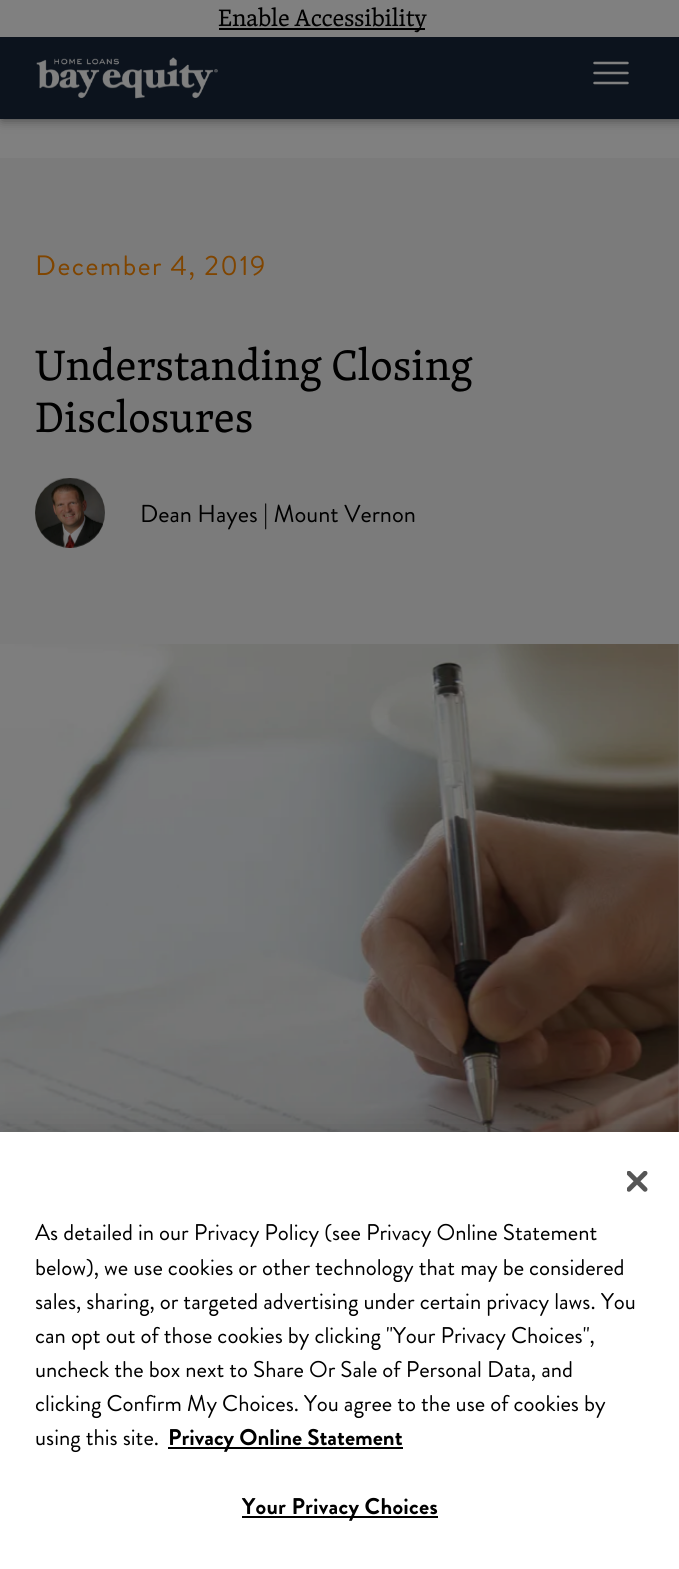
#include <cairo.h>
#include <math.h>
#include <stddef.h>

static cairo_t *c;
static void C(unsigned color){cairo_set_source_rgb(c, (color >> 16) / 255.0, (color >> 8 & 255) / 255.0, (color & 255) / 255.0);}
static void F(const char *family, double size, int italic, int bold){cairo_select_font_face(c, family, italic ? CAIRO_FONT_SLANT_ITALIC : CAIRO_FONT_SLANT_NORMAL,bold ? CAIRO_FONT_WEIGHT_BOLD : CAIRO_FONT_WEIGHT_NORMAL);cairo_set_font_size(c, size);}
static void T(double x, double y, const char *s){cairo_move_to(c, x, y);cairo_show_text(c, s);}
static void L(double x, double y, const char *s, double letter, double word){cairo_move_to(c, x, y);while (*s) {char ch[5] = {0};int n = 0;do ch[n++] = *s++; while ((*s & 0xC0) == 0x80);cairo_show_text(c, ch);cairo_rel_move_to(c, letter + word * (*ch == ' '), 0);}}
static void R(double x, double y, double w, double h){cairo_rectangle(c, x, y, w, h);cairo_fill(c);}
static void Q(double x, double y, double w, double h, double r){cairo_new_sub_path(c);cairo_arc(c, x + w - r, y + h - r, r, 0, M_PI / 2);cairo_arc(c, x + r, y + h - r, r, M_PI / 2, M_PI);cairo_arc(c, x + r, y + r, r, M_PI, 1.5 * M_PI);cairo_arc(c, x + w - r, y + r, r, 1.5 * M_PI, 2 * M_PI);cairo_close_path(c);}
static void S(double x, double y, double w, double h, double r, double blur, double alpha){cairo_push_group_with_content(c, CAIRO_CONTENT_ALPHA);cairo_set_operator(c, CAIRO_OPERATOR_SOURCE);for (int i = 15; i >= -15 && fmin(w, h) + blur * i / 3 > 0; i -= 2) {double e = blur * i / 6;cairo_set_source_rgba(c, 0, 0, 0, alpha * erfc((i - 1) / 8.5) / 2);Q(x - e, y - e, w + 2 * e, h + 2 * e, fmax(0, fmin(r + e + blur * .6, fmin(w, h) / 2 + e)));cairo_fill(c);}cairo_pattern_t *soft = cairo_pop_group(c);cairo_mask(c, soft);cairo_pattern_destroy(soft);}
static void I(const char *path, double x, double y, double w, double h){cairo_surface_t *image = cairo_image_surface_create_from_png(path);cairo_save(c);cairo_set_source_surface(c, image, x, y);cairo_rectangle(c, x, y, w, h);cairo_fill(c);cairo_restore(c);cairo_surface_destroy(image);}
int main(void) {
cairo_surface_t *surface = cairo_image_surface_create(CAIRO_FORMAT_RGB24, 679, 1569);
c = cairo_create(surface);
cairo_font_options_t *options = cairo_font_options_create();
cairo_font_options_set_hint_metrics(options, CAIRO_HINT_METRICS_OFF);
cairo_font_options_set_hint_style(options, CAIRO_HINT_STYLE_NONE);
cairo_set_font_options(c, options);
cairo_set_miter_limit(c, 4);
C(0x7b7b7b);
cairo_paint(c);
C(0x808080);
R(0,119,679,39);
C(0x000000);
S(2,35,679,84,0,6,.5);
C(0x808080);
R(0,0,679,37);
C(0x000000);
R(219,28,206,2);
F("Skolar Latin",24.5,0,0);
L(218,26,"Enable Accessibility",-.25,0);
C(0x0c131d);
R(0,37,679,82);
I("1.png",36,57,182,42);
cairo_new_path(c);
cairo_move_to(c,594.5,63);
cairo_line_to(c,627.5,63);
cairo_move_to(c,594.5,73);
cairo_line_to(c,627.5,73);
cairo_move_to(c,594.5,83);
cairo_line_to(c,627.5,83);
C(0x808080);
cairo_set_line_width(c,2.5);
cairo_set_line_cap(c,CAIRO_LINE_CAP_ROUND);
cairo_stroke(c);
F("Brandon Grotesque",28,0,0);
C(0x804500);
L(35,275,"December 4, 2019",1.5,0);
F("Skolar Latin",43.75,0,0);
C(0x000000);
T(35,380,"Understanding Closing");
T(35,432,"Disclosures");
I("2.png",35,478,70,70);
F("Brandon Grotesque",24.5,0,0);
T(140,522,"Dean Hayes | Mount Vernon");
I("3.png",0,644,679,488);
C(0x000000);
S(0,1132,679,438,0,16,.2);
C(0xffffff);
R(0,1132,679,437);
I("4.png",627,1171,21,21);
F("Brandon Grotesque",22.75,0,0);
C(0x000000);
T(35,1240,"As detailed in our Privacy Policy (see Privacy Online Statement");
T(35,1275,"below), we use cookies or other technology that may be considered");
T(35,1309,"sales, sharing, or targeted advertising under certain privacy laws.");
T(601,1309,"You");
T(35,1343,"can opt out of those cookies by clicking \"Your Privacy Choices\",");
T(35,1377,"uncheck the box next to Share Or Sale of Personal Data, and");
T(35,1411,"clicking Confirm My Choices. You agree to the use of cookies by");
T(35,1445,"using this site.");
R(168,1447,235,2);
F("Brandon Grotesque",22.75,0,1);
T(168,1445,"Privacy Online Statement");
R(242,1516,196,2);
L(242,1514,"Your Privacy Choices",.25,0);
cairo_surface_write_to_png(surface, "o.png");
cairo_font_options_destroy(options);
cairo_destroy(c);
cairo_surface_destroy(surface);
return 0;
}
